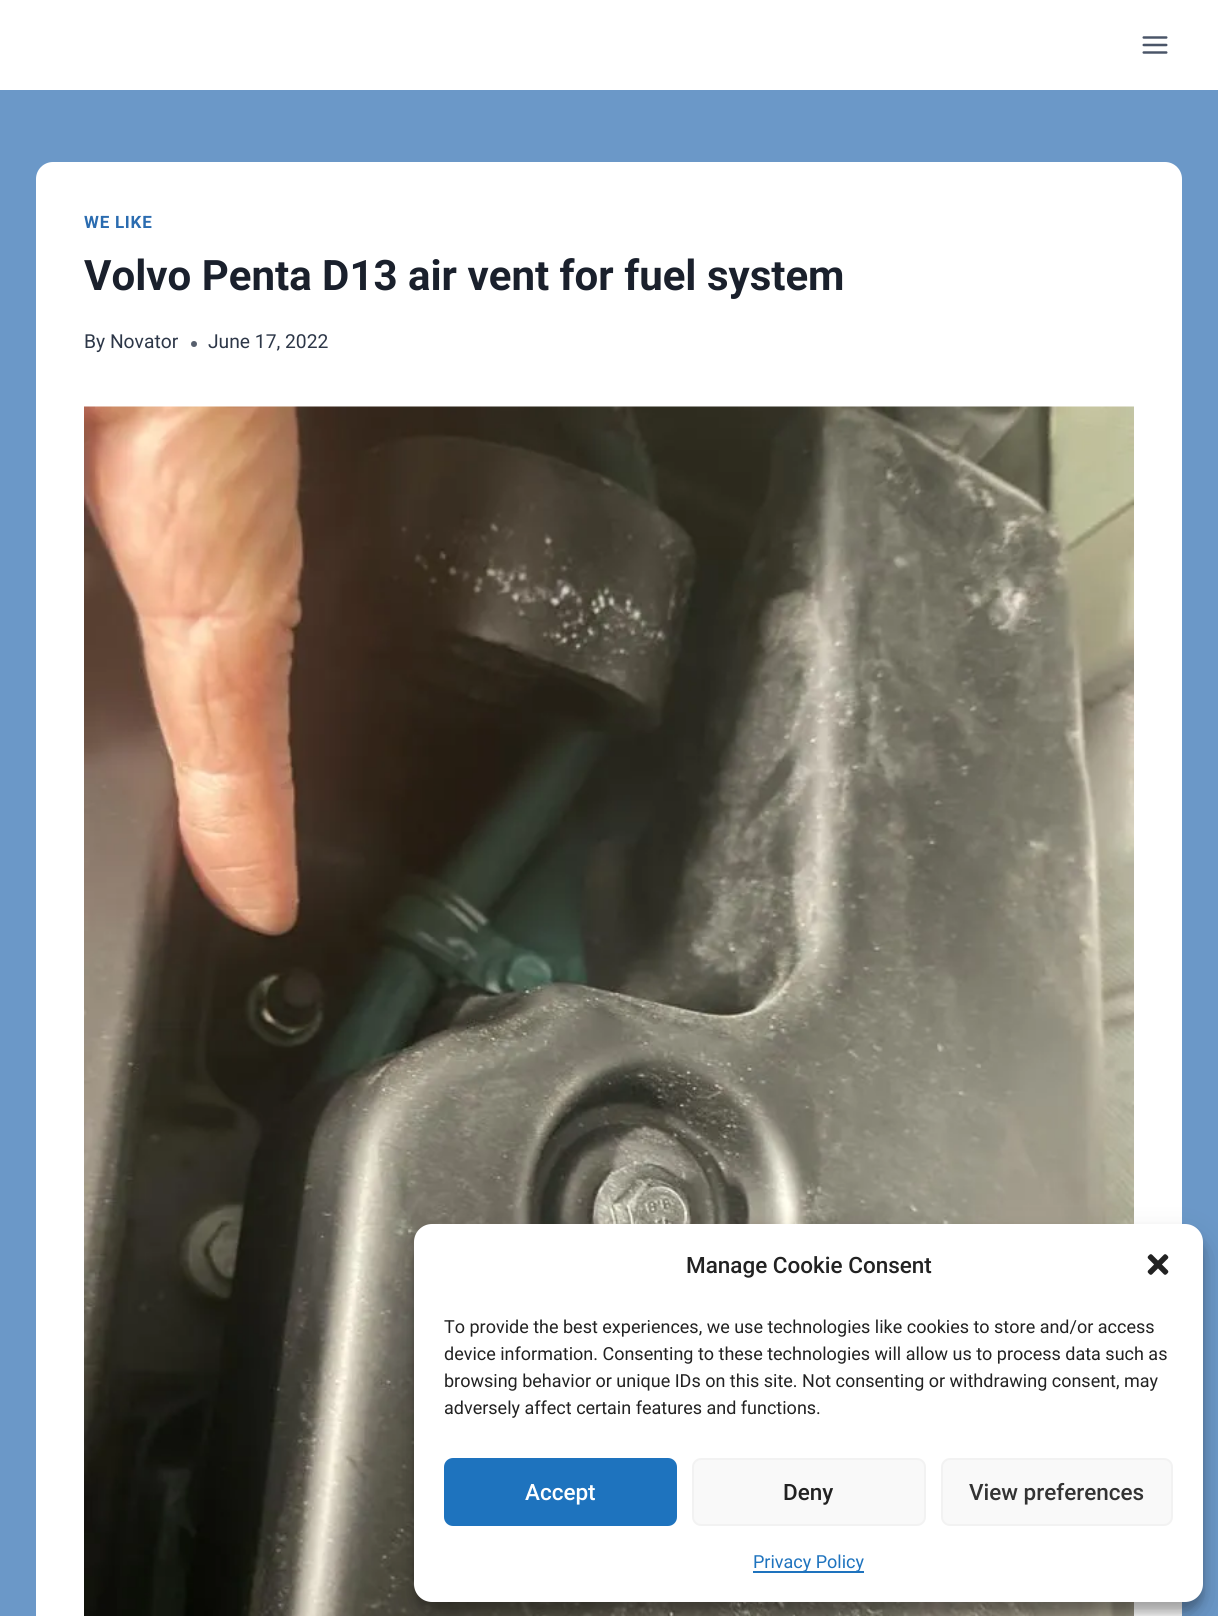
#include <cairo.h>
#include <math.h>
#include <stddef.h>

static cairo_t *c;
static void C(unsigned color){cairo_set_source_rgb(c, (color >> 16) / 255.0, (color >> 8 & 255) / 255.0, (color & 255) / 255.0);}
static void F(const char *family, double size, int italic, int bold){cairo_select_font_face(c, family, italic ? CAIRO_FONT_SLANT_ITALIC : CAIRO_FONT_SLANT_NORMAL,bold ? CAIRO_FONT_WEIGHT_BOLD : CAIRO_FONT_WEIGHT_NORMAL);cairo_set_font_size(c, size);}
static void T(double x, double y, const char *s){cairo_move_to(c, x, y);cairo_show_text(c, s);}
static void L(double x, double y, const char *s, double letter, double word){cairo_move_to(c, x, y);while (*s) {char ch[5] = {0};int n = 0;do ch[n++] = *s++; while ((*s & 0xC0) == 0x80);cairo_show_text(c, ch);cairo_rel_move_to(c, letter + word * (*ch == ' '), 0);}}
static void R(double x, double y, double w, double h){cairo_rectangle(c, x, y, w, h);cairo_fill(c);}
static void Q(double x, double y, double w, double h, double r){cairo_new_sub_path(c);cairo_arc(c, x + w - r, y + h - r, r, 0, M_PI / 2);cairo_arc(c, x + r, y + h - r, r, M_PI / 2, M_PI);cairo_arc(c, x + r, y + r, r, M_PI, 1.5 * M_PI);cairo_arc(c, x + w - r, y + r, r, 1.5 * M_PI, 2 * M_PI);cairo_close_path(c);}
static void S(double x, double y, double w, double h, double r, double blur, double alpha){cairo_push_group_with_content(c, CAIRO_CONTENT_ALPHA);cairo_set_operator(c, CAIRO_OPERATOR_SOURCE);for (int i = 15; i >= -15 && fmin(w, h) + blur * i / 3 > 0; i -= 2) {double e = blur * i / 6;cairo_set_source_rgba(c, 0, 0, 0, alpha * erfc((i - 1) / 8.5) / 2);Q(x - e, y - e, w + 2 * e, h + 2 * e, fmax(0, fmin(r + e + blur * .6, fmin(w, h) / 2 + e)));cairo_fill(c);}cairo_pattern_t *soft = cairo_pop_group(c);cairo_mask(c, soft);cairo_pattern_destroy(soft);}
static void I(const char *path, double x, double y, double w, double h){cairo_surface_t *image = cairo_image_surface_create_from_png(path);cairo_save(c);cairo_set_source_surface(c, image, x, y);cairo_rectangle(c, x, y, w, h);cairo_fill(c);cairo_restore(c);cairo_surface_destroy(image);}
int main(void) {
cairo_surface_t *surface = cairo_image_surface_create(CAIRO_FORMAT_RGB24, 1218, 1616);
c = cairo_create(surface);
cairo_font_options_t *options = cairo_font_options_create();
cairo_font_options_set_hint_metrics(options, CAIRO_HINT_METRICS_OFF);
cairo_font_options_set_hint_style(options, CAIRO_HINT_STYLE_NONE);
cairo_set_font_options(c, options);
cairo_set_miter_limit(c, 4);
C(0x6b98c8);
cairo_paint(c);
C(0xffffff);
R(0,0,1218,90);
I("1.png",1142,36,26,18);
Q(36,162,1146,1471,17);
cairo_fill(c);
F("Roboto",17,0,1);
C(0x2b6cb0);
L(84,228,"WE LIKE",.75,0);
F("Roboto",42,0,1);
C(0x1a202c);
T(84,290,"Volvo Penta D13 air vent for fuel system");
F("Roboto",19.25,0,0);
C(0x2d3748);
T(84,348,"By Novator");
C(0x575f6d);
cairo_new_path(c);
cairo_arc(c,194,344,3,0,2 * M_PI);
cairo_fill(c);
C(0x2d3748);
T(208,348,"June 17, 2022");
I("2.png",84,406,1050,1210);
C(0x000000);
S(414,1233,789,378,18,4.5,.23);
S(414,1239,789,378,18,15,.19);
C(0xffffff);
Q(414,1224,789,378,18);
cairo_fill(c);
F("Roboto Medium",22.5,0,0);
C(0x222222);
T(686,1273,"Manage Cookie Consent");
I("3.png",1147,1254,22,21);
F("Roboto",18,0,0);
T(444,1333,"To provide the best experiences, we use technologies like cookies to store and/or access");
T(444,1360,"device information. Consenting to these technologies will allow us to process data such as");
T(444,1387,"browsing behavior or unique IDs on this site. Not consenting or withdrawing consent, may");
T(444,1414,"adversely affect certain features and functions.");
C(0x1e73be);
Q(445,1459,231,66,8);
cairo_fill_preserve(c);
cairo_stroke(c);
F("Roboto Medium",22.5,0,0);
C(0xffffff);
T(525,1500,"Accept");
C(0xf9f9f9);
Q(693,1459,232,66,8);
cairo_fill_preserve(c);
C(0xf2f2f2);
cairo_stroke(c);
C(0x222222);
T(783,1500,"Deny");
C(0xf9f9f9);
Q(942,1459,230,66,8);
cairo_fill_preserve(c);
C(0xf2f2f2);
cairo_stroke(c);
C(0x333333);
T(969,1500,"View preferences");
C(0x1e73be);
R(753,1571,111,2);
F("Roboto",18,0,0);
T(753,1568,"Privacy Policy");
cairo_surface_write_to_png(surface, "o.png");
cairo_font_options_destroy(options);
cairo_destroy(c);
cairo_surface_destroy(surface);
return 0;
}
